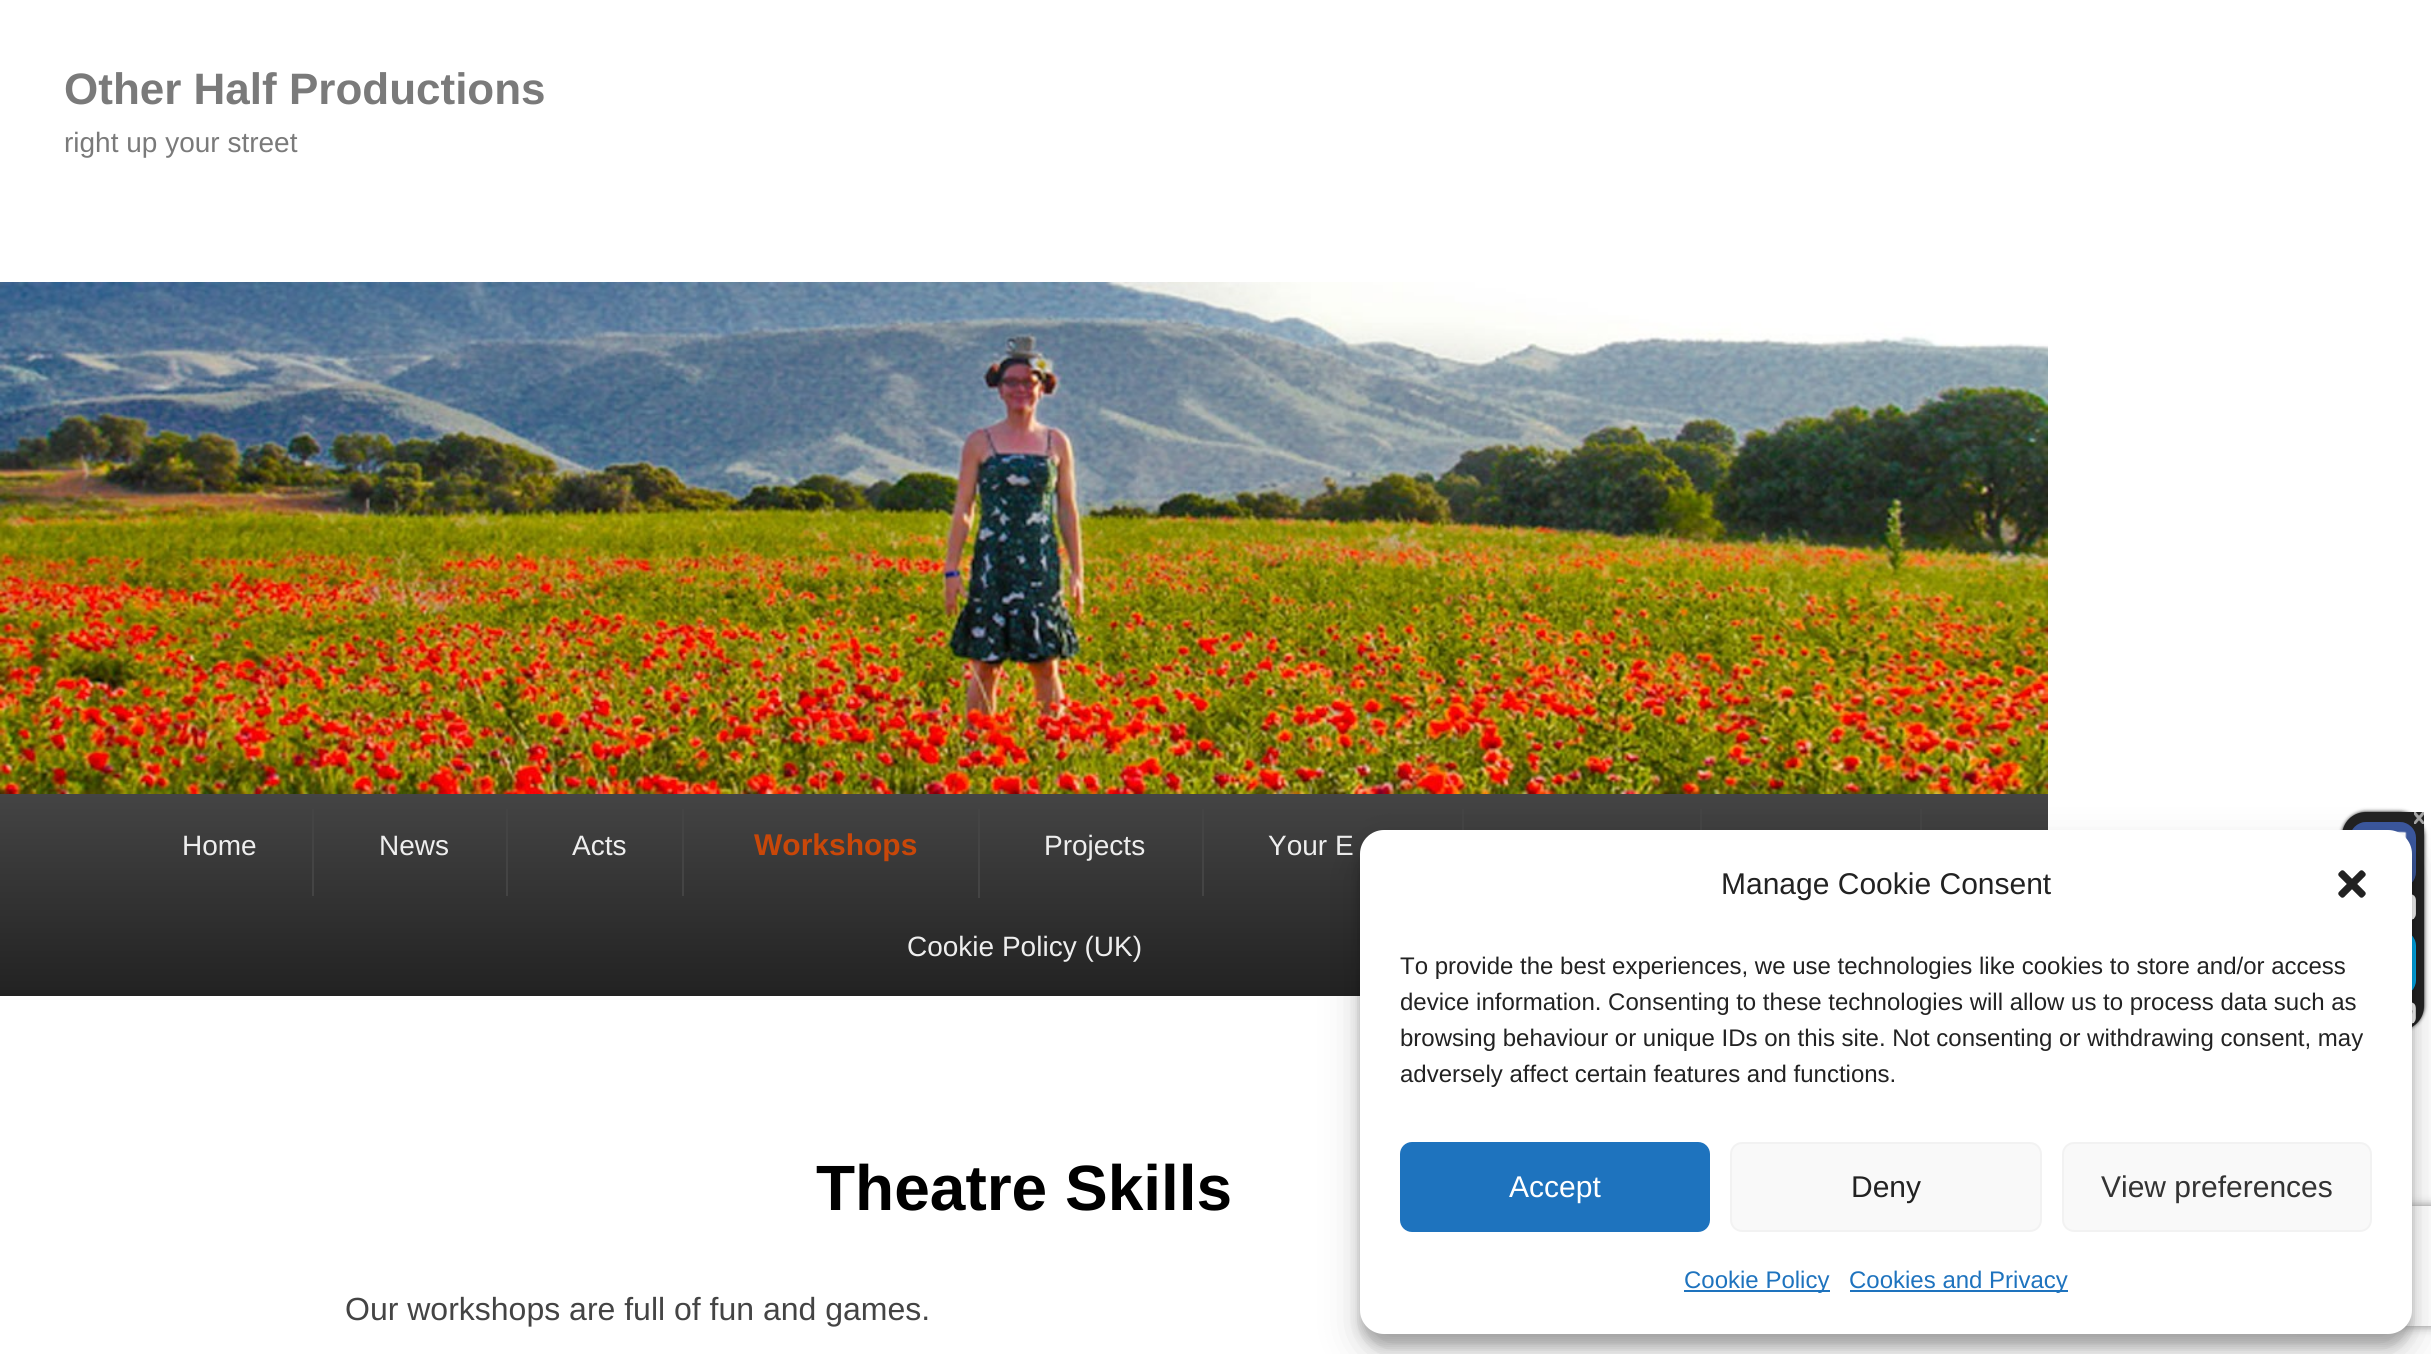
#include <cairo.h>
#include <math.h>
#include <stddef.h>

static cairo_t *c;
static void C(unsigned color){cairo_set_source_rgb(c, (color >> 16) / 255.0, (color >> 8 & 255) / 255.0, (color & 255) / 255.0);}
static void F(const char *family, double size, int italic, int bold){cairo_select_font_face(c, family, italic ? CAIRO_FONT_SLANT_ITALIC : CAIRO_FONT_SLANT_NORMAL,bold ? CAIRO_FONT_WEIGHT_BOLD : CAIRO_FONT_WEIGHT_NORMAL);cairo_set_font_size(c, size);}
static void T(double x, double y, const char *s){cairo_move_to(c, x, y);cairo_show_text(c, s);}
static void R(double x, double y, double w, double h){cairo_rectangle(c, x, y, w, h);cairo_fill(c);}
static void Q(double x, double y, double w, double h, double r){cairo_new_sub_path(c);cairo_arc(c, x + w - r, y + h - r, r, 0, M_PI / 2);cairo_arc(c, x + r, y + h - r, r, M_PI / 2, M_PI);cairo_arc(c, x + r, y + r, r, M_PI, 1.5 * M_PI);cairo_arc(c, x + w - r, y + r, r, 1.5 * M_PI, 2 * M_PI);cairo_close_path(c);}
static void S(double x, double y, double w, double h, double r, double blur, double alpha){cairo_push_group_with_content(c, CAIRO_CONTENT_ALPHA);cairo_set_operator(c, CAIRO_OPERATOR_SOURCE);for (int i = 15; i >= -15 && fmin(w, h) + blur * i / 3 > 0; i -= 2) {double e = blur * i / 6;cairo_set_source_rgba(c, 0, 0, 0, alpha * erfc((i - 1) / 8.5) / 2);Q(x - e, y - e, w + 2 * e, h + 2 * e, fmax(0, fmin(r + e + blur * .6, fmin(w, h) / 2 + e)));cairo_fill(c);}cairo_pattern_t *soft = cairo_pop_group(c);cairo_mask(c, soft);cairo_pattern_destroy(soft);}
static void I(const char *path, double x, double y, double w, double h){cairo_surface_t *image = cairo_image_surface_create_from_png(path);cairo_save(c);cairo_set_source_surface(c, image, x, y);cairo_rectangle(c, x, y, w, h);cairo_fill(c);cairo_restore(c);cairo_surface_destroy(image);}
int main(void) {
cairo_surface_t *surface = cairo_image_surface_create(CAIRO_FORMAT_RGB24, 2431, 1354);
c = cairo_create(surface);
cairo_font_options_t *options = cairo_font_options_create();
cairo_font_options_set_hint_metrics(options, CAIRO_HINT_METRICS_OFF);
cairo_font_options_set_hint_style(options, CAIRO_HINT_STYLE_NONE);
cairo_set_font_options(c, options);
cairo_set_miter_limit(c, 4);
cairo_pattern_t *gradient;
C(0xffffff);
cairo_paint(c);
F("Liberation Sans",44,0,1);
C(0x7a7a7a);
T(64,104,"Other Half Productions");
F("Liberation Sans",28,0,0);
T(64,152,"right up your street");
I("1.png",0,282,2048,512);
gradient = cairo_pattern_create_linear(1024,794,1024,996);
cairo_pattern_add_color_stop_rgba(gradient,0,0.267,0.267,0.267,1);
cairo_pattern_add_color_stop_rgba(gradient,1,0.133,0.133,0.133,1);
cairo_set_source(c,gradient);
cairo_pattern_destroy(gradient);
R(0,794,2048,202);
C(0x444444);
R(1700,809,2,21);
R(1920,809,2,21);
R(312,809,2,87);
C(0xeeeeee);
T(182,855,"Home");
C(0x444444);
R(506,809,2,87);
C(0xeeeeee);
T(379,855,"News");
C(0x444444);
R(682,809,2,87);
C(0xeeeeee);
T(572,855,"Acts");
C(0x444444);
R(978,809,2,89);
F("Liberation Sans",30,0,1);
C(0xc94708);
T(754,855,"Workshops");
C(0x444444);
R(1202,809,2,87);
F("Liberation Sans",28,0,0);
C(0xeeeeee);
T(1044,855,"Projects");
C(0x444444);
R(1462,809,2,21);
C(0xeeeeee);
T(1268,855,"Your E");
T(907,956,"Cookie Policy (UK)");
F("Liberation Sans",64,0,1);
C(0x000000);
T(816,1210,"Theatre Skills");
F("Liberation Sans",32,0,0);
C(0x444444);
T(345,1320,"Our workshops are full of fun and games.");
C(0x000000);
S(2342,812,82,218,24,2,1);
C(0x222222);
cairo_new_path(c);
cairo_move_to(c,2366,812);
cairo_line_to(c,2424,812);
cairo_line_to(c,2424,1006);
cairo_curve_to(c,2424,1019.5,2413.5,1030,2400,1030);
cairo_line_to(c,2366,1030);
cairo_curve_to(c,2352.5,1030,2342,1019.5,2342,1006);
cairo_line_to(c,2342,836);
cairo_curve_to(c,2342,822.5,2352.5,812,2366,812);
cairo_close_path(c);
cairo_fill(c);
I("4.png",2352,822,64,61);
I("3.png",2414,812,10,12);
I("5.png",2412,894,4,26);
I("6.png",2412,935,4,56);
I("7.png",2412,1002,4,22);
C(0x000000);
S(1360,842,1052,504,24,6,.23);
S(1360,850,1052,504,24,20,.19);
cairo_save(c);
cairo_set_fill_rule(c,CAIRO_FILL_RULE_EVEN_ODD);
cairo_new_path(c);
cairo_move_to(c,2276,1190);
cairo_line_to(c,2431,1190);
cairo_line_to(c,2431,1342);
cairo_line_to(c,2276,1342);
cairo_close_path(c);
cairo_move_to(c,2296,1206);
cairo_line_to(c,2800,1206);
cairo_curve_to(c,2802,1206,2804,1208,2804,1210);
cairo_line_to(c,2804,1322);
cairo_curve_to(c,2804,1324,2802,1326,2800,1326);
cairo_line_to(c,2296,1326);
cairo_curve_to(c,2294,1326,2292,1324,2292,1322);
cairo_line_to(c,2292,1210);
cairo_curve_to(c,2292,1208,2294,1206,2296,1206);
cairo_close_path(c);
cairo_clip(c);
C(0x808080);
S(2292,1206,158,120,4,5,1);
cairo_restore(c);
C(0xffffff);
Q(1360,830,1052,504,24);
cairo_fill(c);
F("Liberation Sans",30,0,0);
C(0x222222);
T(1721,894,"Manage Cookie Consent");
I("2.png",2338,870,28,28);
F("Liberation Sans",24,0,0);
T(1400,974,"To provide the best experiences, we use technologies like cookies to store and/or access");
T(1400,1010,"device information. Consenting to these technologies will allow us to process data such as");
T(1400,1046,"browsing behaviour or unique IDs on this site. Not consenting or withdrawing consent, may");
T(1400,1082,"adversely affect certain features and functions.");
C(0x1e73be);
Q(1401,1143,308,88,11);
cairo_fill_preserve(c);
cairo_stroke(c);
F("Liberation Sans",30,0,0);
C(0xffffff);
T(1509,1197,"Accept");
C(0xf9f9f9);
Q(1731,1143,310,88,11);
cairo_fill_preserve(c);
C(0xf2f2f2);
cairo_stroke(c);
C(0x222222);
T(1851,1197,"Deny");
C(0xf9f9f9);
Q(2063,1143,308,88,11);
cairo_fill_preserve(c);
C(0xf2f2f2);
cairo_stroke(c);
C(0x333333);
T(2101,1197,"View preferences");
C(0x1e73be);
R(1684,1290,146,2);
F("Liberation Sans",24,0,0);
T(1684,1288,"Cookie Policy");
R(1850,1290,218,2);
T(1849,1288,"Cookies and Privacy");
cairo_surface_write_to_png(surface, "o.png");
cairo_font_options_destroy(options);
cairo_destroy(c);
cairo_surface_destroy(surface);
return 0;
}
